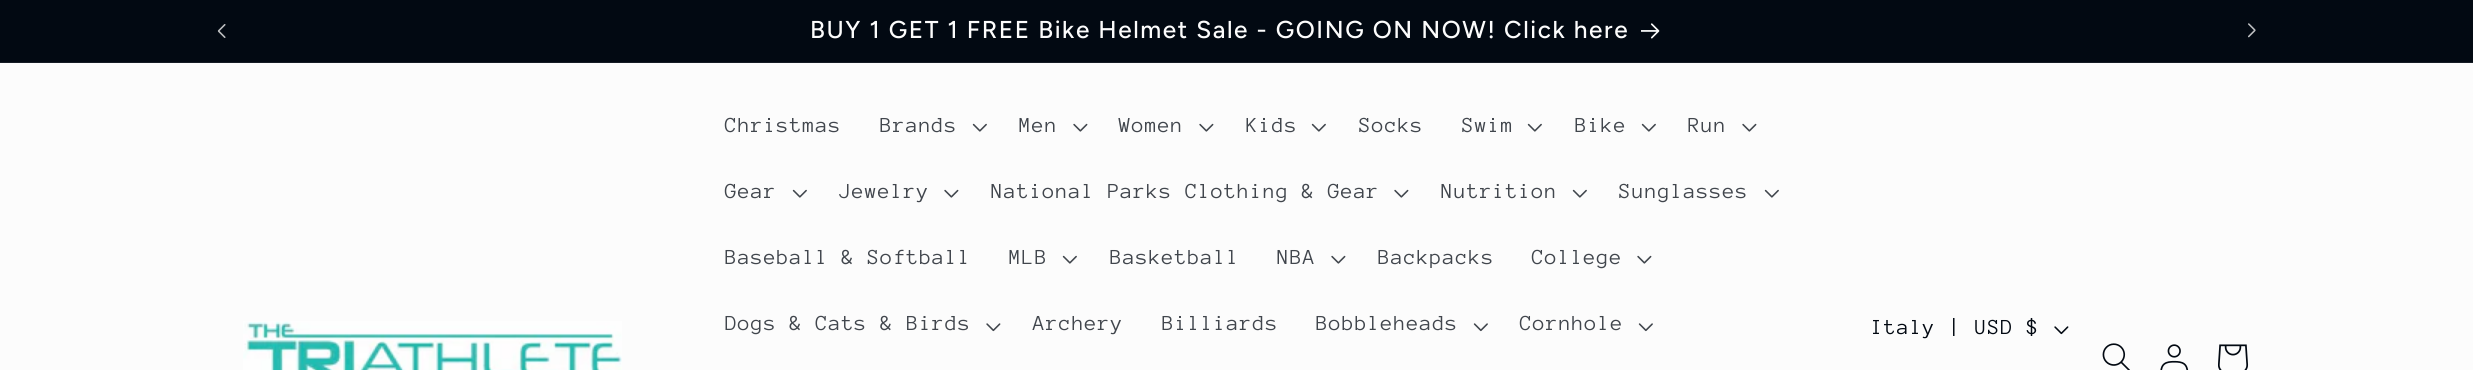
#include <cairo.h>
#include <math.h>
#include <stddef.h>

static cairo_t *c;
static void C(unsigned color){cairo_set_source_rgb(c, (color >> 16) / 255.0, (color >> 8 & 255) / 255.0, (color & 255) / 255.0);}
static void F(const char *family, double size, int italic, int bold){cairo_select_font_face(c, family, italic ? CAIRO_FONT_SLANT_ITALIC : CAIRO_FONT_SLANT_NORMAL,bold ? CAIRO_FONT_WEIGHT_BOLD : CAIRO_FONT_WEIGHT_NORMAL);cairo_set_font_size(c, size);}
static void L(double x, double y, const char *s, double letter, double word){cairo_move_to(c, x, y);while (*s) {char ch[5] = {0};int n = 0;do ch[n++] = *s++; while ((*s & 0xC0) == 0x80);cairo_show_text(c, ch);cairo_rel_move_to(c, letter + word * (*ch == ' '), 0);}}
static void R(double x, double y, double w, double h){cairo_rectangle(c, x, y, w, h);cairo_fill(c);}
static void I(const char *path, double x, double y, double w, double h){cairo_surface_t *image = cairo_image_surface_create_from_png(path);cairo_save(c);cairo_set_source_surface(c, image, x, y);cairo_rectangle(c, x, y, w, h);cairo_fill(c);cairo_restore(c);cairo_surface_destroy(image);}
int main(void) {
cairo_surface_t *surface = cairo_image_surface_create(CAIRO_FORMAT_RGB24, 2473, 370);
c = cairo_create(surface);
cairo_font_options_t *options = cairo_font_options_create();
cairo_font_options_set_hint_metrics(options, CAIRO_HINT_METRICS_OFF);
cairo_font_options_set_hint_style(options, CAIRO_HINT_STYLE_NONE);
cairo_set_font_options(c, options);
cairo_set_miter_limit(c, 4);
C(0xfcfcfc);
cairo_paint(c);
C(0x020912);
R(0,0,2473,62);
C(0x161c25);
R(0,62,2473,1);
I("1.png",217,24,9,14);
F("Figtree Medium",24.4,0,0);
C(0xfcfcfc);
L(810,38,"BUY 1 GET 1 FREE Bike Helmet Sale - GOING ON NOW! Click here",1.58,0);
I("2.png",1641,23,19,16);
I("3.png",2248,23,8,15);
I("4.png",243,321,379,49);
F("Anonymous Pro",22,0,0);
C(0x41464d);
L(725,132,"Christmas",.95,0);
L(880,132,"Brands",.95,0);
I("5.png",972,123,15,9);
L(1019,132,"Men",.95,0);
I("6.png",1073,123,15,9);
L(1119,132,"Women",.95,0);
I("6.png",1199,123,15,9);
L(1246,132,"Kids",.95,0);
I("5.png",1311,123,15,9);
L(1359,132,"Socks",.95,0);
L(1462,132,"Swim",.95,0);
I("5.png",1527,123,15,9);
L(1575,132,"Bike",.95,0);
I("5.png",1641,123,15,9);
L(1688,132,"Run",.95,0);
I("6.png",1742,123,15,9);
L(725,198,"Gear",.95,0);
I("5.png",792,189,15,9);
L(839,198,"Jewelry",.95,0);
I("6.png",944,189,15,9);
L(991,198,"National Parks Clothing & Gear",.95,0);
I("6.png",1394,189,15,9);
L(1441,198,"Nutrition",.95,0);
I("5.png",1572,189,15,9);
L(1619,198,"Sunglasses",.95,0);
I("5.png",1764,189,15,9);
L(725,264,"Baseball & Softball",.95,0);
L(1009,264,"MLB",.95,0);
I("5.png",1062,255,15,9);
L(1110,264,"Basketball",.95,0);
L(1277,264,"NBA",.95,0);
I("6.png",1331,255,15,9);
L(1378,264,"Backpacks",.95,0);
L(1532,264,"College",.95,0);
I("6.png",1637,255,15,9);
L(725,330,"Dogs & Cats & Birds",.95,0);
I("7.png",986,323,15,9);
L(1033,330,"Archery",.95,0);
L(1162,330,"Billiards",.95,0);
L(1316,330,"Bobbleheads",.95,0);
I("8.png",1473,323,15,9);
L(1520,330,"Cornhole",.95,0);
I("8.png",1638,323,15,9);
C(0x020912);
L(1871,334,"Italy | USD $",.95,0);
I("9.png",2054,326,15,9);
I("10.png",2102,343,28,27);
I("11.png",2160,344,29,26);
I("12.png",2218,344,31,26);
cairo_surface_write_to_png(surface, "o.png");
cairo_font_options_destroy(options);
cairo_destroy(c);
cairo_surface_destroy(surface);
return 0;
}
